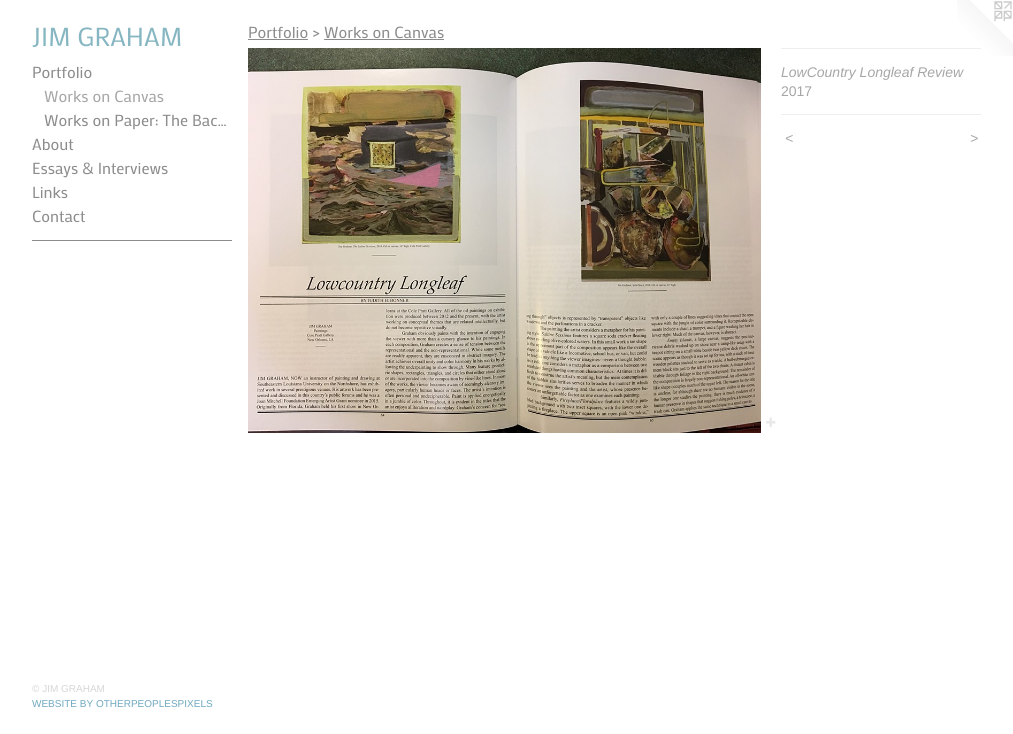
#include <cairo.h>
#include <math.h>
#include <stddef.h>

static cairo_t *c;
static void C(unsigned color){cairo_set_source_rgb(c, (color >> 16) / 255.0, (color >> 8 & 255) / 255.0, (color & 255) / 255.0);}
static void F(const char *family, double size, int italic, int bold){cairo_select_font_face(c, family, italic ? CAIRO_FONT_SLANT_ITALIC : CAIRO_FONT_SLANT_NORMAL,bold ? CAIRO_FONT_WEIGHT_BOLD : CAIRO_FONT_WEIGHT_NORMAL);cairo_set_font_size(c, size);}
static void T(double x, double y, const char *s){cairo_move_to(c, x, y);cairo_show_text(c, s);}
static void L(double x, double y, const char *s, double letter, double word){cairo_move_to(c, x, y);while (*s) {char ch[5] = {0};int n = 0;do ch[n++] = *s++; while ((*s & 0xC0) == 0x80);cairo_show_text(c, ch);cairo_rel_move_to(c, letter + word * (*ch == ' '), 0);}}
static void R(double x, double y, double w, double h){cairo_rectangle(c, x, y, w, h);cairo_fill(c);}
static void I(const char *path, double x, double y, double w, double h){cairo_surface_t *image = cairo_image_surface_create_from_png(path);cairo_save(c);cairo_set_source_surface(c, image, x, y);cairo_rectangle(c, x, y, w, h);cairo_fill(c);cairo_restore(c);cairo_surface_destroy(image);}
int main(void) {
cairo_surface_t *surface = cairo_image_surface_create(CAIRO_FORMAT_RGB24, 1013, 734);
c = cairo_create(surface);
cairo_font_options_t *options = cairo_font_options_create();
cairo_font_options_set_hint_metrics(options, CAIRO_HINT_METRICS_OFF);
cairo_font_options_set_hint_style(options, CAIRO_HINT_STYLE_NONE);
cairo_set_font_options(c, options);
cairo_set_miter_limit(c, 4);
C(0xffffff);
cairo_paint(c);
F("Mako",26,0,0);
C(0x86b6c1);
T(32,46,"JIM GRAHAM");
F("Mako",16,0,0);
C(0x8c8c8c);
T(32,78,"Portfolio");
C(0xa6a6a6);
T(44,102,"Works on Canvas");
C(0x8c8c8c);
T(44,126,"Works on Paper: The Bac…");
T(32,150,"About");
T(32,174,"Essays & Interviews");
T(32,198,"Links");
T(32,222,"Contact");
R(32,240,200,1);
F("Liberation Sans",10,0,0);
C(0xd6d6d6);
T(32,692,"© JIM GRAHAM");
C(0x70a8c0);
T(32,707,"WEBSITE BY OTHERPEOPLESPIXELS");
F("Mako",16,0,0);
C(0x8c8c8c);
T(248,38,"Portfolio > Works on Canvas");
R(248,39,60,1);
R(324,39,120,1);
I("1.png",248,48,513,385);
I("2.png",766,417,10,10);
I("3.png",957,0,56,56);
C(0xeeeeee);
R(781,48,200,1);
F("Liberation Sans",14,1,0);
C(0xa6a6a6);
T(781,77,"LowCountry Longleaf Review");
F("Liberation Sans",14,0,0);
T(781,96,"2017");
C(0xeeeeee);
R(781,114,200,1);
F("Liberation Sans",14,1,0);
C(0xa6a6a6);
L(785,143,"<",1,0);
L(970,143,">",1,0);
cairo_surface_write_to_png(surface, "o.png");
cairo_font_options_destroy(options);
cairo_destroy(c);
cairo_surface_destroy(surface);
return 0;
}
